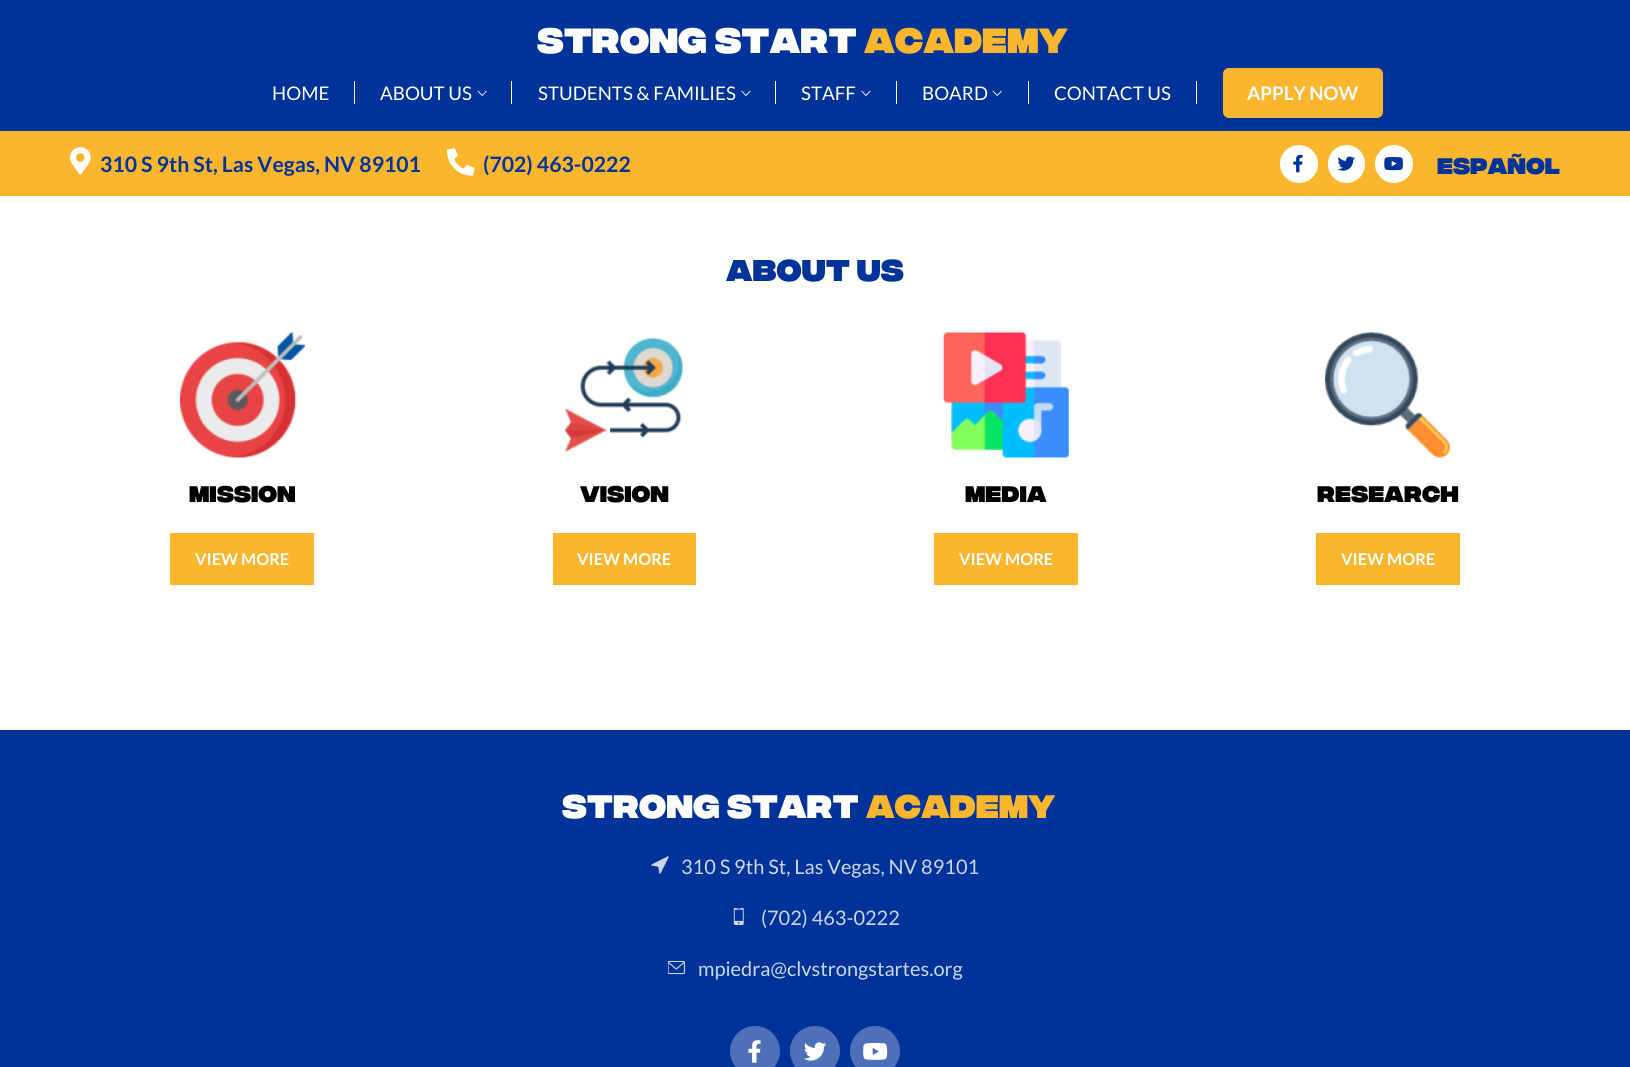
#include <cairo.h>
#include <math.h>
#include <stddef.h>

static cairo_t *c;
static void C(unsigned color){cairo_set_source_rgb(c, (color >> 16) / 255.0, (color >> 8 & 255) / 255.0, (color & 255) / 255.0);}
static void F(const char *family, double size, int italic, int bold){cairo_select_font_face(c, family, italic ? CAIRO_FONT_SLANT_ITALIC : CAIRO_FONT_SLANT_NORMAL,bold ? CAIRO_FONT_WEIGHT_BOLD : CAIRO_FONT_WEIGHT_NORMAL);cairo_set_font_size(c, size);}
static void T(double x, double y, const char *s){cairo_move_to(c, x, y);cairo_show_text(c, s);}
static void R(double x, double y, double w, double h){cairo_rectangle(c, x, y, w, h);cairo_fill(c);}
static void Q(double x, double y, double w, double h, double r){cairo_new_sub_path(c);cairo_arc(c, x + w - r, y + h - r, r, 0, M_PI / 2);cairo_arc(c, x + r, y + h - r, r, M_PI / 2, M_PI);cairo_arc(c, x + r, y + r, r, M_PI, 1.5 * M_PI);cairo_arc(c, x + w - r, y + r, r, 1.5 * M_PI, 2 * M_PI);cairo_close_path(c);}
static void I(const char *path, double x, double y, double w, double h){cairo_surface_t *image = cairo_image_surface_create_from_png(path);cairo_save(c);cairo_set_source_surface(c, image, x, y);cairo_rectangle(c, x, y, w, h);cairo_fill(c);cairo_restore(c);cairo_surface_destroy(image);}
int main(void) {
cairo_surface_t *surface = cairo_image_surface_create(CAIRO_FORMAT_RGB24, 1630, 1067);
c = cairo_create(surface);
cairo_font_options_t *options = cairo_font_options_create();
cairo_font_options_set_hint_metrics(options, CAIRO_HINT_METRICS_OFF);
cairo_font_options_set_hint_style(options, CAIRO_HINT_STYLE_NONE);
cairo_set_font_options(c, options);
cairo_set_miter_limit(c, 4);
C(0xffffff);
cairo_paint(c);
C(0x003399);
R(0,0,1630,131);
F("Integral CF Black",35,0,0);
C(0xffffff);
T(537,53,"STRONG START");
C(0xfcb62e);
T(864,53,"ACADEMY");
F("Lato",18.75,0,0);
C(0xffffff);
T(272,100,"HOME");
R(354,81,1,23);
T(380,100,"ABOUT US");
I("1.png",477,90,10,6);
R(511,81,1,23);
T(538,100,"STUDENTS & FAMILIES");
I("2.png",741,90,10,6);
R(775,81,1,23);
T(801,100,"STAFF");
I("2.png",861,90,10,6);
R(896,81,1,23);
T(922,100,"BOARD");
I("1.png",992,90,10,6);
R(1028,81,1,23);
T(1054,100,"CONTACT US");
R(1196,81,1,23);
C(0xfcb62e);
Q(1223,68,160,50,6);
cairo_fill(c);
F("Lato",18.75,0,1);
C(0xffffff);
T(1247,100,"APPLY NOW");
C(0xfcb62e);
R(0,131,1630,65);
I("3.png",70,147,21,28);
F("Lato",21.25,0,1);
C(0x003399);
T(100,172,"310 S 9th St, Las Vegas, NV 89101");
I("4.png",447,148,28,28);
T(483,172,"(702) 463-0222");
C(0xffffff);
cairo_new_path(c);
cairo_arc(c,1299,164,19,0,2 * M_PI);
cairo_fill(c);
I("5.png",1293,154,10,19);
Q(1328,145,37,38,18.5);
cairo_fill(c);
I("6.png",1337,156,18,15);
cairo_arc(c,1394,164,19,0,2 * M_PI);
cairo_fill(c);
I("7.png",1384,157,19,14);
F("Integral CF Black",22.5,0,0);
C(0x003399);
T(1437,174,"ESPAÑOL");
F("Integral CF Black",30,0,0);
T(726,281,"About Us");
I("8.png",180,332,125,126);
F("Integral CF Black",22.5,0,0);
C(0x000000);
T(189,502,"Mission");
C(0xfcb62e);
R(170,533,144,52);
F("Lato",16.25,0,1);
C(0xffffff);
T(195,565,"VIEW MORE");
I("9.png",564,337,119,116);
F("Integral CF Black",22.5,0,0);
C(0x000000);
T(580,502,"Vision");
C(0xfcb62e);
R(553,533,143,52);
F("Lato",16.25,0,1);
C(0xffffff);
T(577,565,"VIEW MORE");
I("10.png",943,332,126,126);
F("Integral CF Black",22.5,0,0);
C(0x000000);
T(965,502,"Media");
C(0xfcb62e);
R(934,533,144,52);
F("Lato",16.25,0,1);
C(0xffffff);
T(959,565,"VIEW MORE");
I("11.png",1325,332,125,126);
F("Integral CF Black",22.5,0,0);
C(0x000000);
T(1317,502,"Research");
C(0xfcb62e);
R(1316,533,144,52);
F("Lato",16.25,0,1);
C(0xffffff);
T(1341,565,"VIEW MORE");
C(0x003399);
R(0,730,1630,337);
F("Integral CF Black",32.5,0,0);
C(0xffffff);
T(562,818,"STRONG START");
C(0xfcb62e);
T(866,818,"ACADEMY");
I("12.png",651,856,18,18);
F("Lato",20,0,0);
C(0xccd6eb);
T(681,874,"310 S 9th St, Las Vegas, NV 89101");
I("13.png",733,908,11,17);
T(761,925,"(702) 463-0222");
I("14.png",668,960,17,15);
T(698,976,"mpiedra@clvstrongstartes.org");
C(0x4d70b8);
cairo_new_path(c);
cairo_arc(c,755,1051,25,0,2 * M_PI);
cairo_fill(c);
I("15.png",748,1040,13,23);
cairo_arc(c,815,1051,25,0,2 * M_PI);
cairo_fill(c);
I("16.png",804,1042,23,19);
cairo_arc(c,875,1051,25,0,2 * M_PI);
cairo_fill(c);
I("17.png",863,1043,25,17);
cairo_surface_write_to_png(surface, "o.png");
cairo_font_options_destroy(options);
cairo_destroy(c);
cairo_surface_destroy(surface);
return 0;
}
